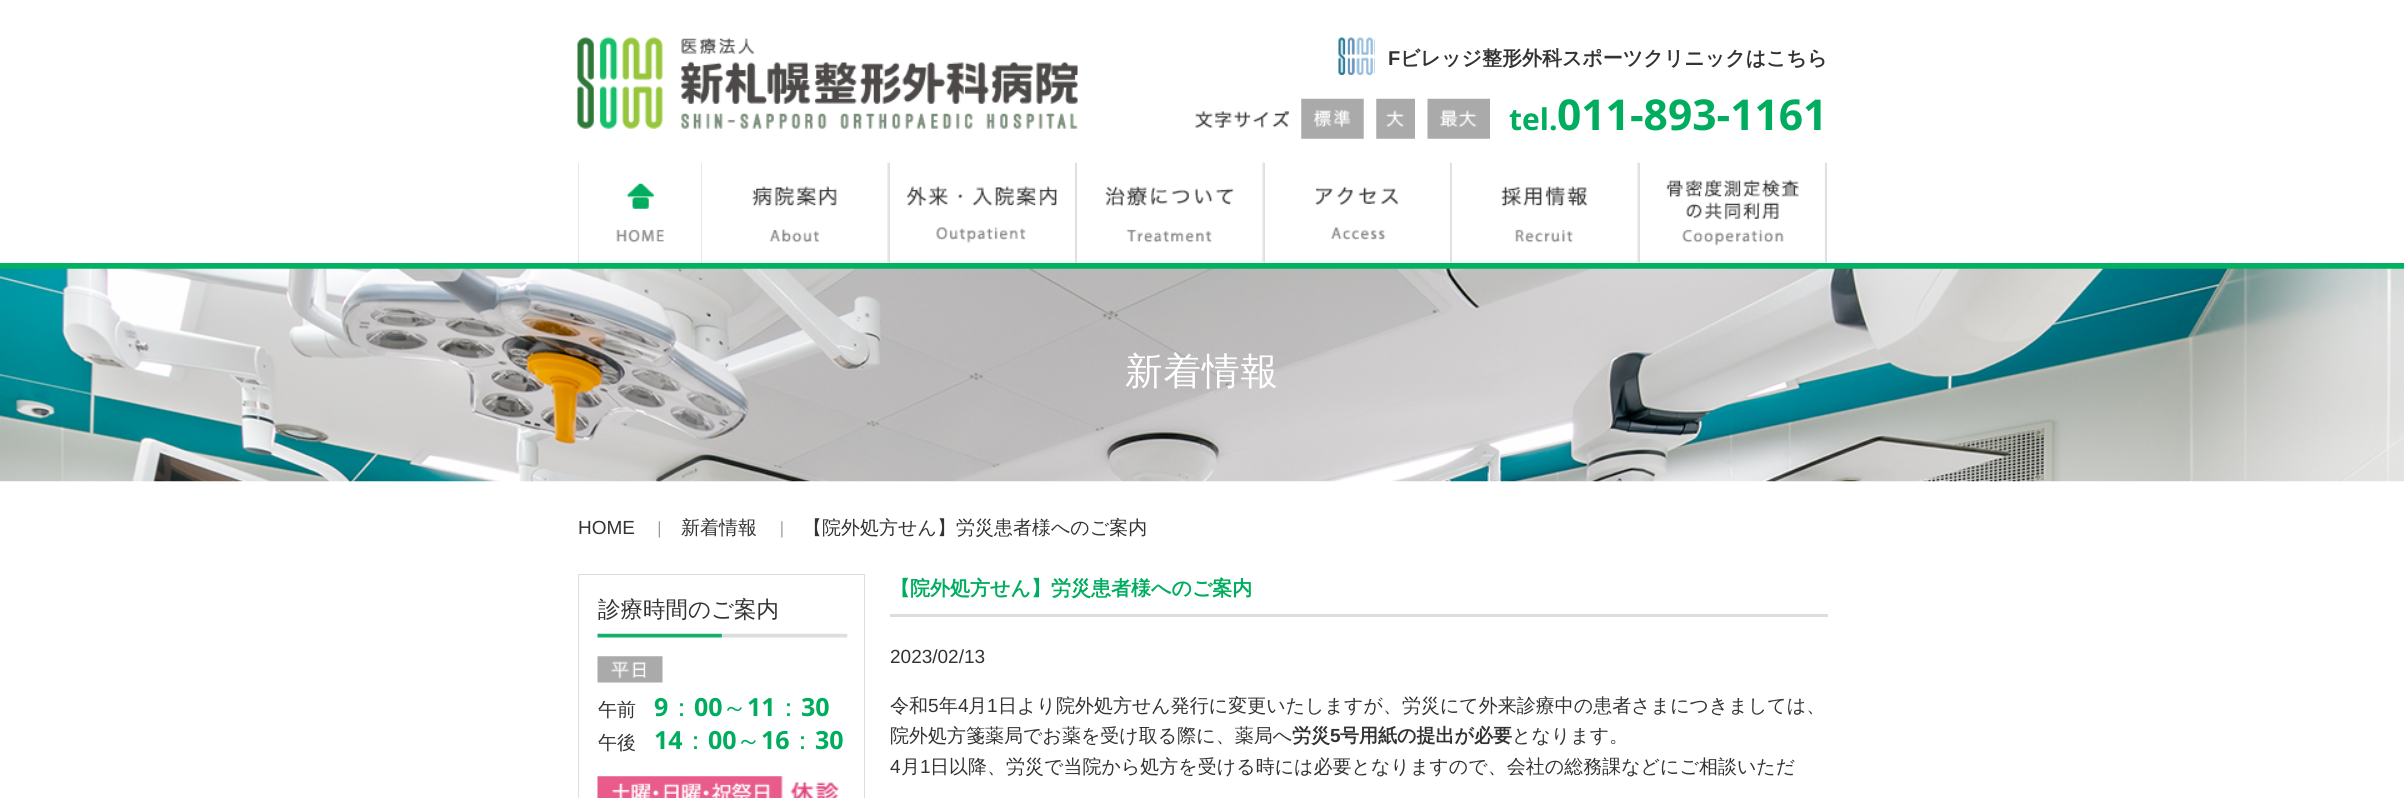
#include <cairo.h>
#include <math.h>
#include <stddef.h>

static cairo_t *c;
static void C(unsigned color){cairo_set_source_rgb(c, (color >> 16) / 255.0, (color >> 8 & 255) / 255.0, (color & 255) / 255.0);}
static void F(const char *family, double size, int italic, int bold){cairo_select_font_face(c, family, italic ? CAIRO_FONT_SLANT_ITALIC : CAIRO_FONT_SLANT_NORMAL,bold ? CAIRO_FONT_WEIGHT_BOLD : CAIRO_FONT_WEIGHT_NORMAL);cairo_set_font_size(c, size);}
static void T(double x, double y, const char *s){cairo_move_to(c, x, y);cairo_show_text(c, s);}
static void L(double x, double y, const char *s, double letter, double word){cairo_move_to(c, x, y);while (*s) {char ch[5] = {0};int n = 0;do ch[n++] = *s++; while ((*s & 0xC0) == 0x80);cairo_show_text(c, ch);cairo_rel_move_to(c, letter + word * (*ch == ' '), 0);}}
static void R(double x, double y, double w, double h){cairo_rectangle(c, x, y, w, h);cairo_fill(c);}
static void I(const char *path, double x, double y, double w, double h){cairo_surface_t *image = cairo_image_surface_create_from_png(path);cairo_save(c);cairo_set_source_surface(c, image, x, y);cairo_rectangle(c, x, y, w, h);cairo_fill(c);cairo_restore(c);cairo_surface_destroy(image);}
int main(void) {
cairo_surface_t *surface = cairo_image_surface_create(CAIRO_FORMAT_RGB24, 2404, 798);
c = cairo_create(surface);
cairo_font_options_t *options = cairo_font_options_create();
cairo_font_options_set_hint_metrics(options, CAIRO_HINT_METRICS_OFF);
cairo_font_options_set_hint_style(options, CAIRO_HINT_STYLE_NONE);
cairo_set_font_options(c, options);
cairo_set_miter_limit(c, 4);
C(0xffffff);
cairo_paint(c);
I("1.png",577,37,501,92);
I("2.png",1338,37,37,38);
F("Liberation Sans",20,0,1);
C(0x333333);
T(1388,65,"F");
F("WenQuanYi Zen Hei",20,0,1);
T(1400,65,"ビレッジ整形外科スポーツクリニックはこちら");
I("3.png",1195,111,94,17);
I("4.png",1301,98,63,41);
I("5.png",1376,98,39,41);
I("6.png",1427,98,63,41);
F("Open Sans",30,0,1);
C(0x00ad5f);
T(1509,130,"tel.");
F("Open Sans",42.5,0,1);
T(1557,130,"011-893-1161");
C(0x01b061);
R(0,263,2404,6);
C(0xdfdfdf);
R(701,163,1,100);
R(578,163,1,100);
I("7.png",578,163,124,100);
R(889,163,1,100);
I("8.png",702,162,187,101);
R(1076,163,1,100);
I("9.png",890,162,187,101);
R(1264,163,1,100);
I("10.png",1077,162,187,101);
R(1451,163,1,100);
I("11.png",1265,162,187,101);
R(1639,163,1,100);
I("12.png",1452,162,187,101);
R(1826,163,1,100);
I("13.png",1640,162,187,101);
I("14.png",0,268,2404,214);
F("WenQuanYi Zen Hei Medium",37.5,0,0);
C(0xffffff);
L(1125,384,"新着情報",1,0);
F("Liberation Sans",19,0,0);
C(0x333333);
T(578,534,"HOME");
I("15.png",658,521,2,17);
F("WenQuanYi Zen Hei Medium",19,0,0);
T(681,534,"新着情報");
I("16.png",781,521,2,17);
T(803,534,"【院外処方せん】労災患者様へのご案内");
cairo_rectangle(c,578.5,574.5,286,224);
C(0xdddddd);
cairo_set_line_width(c,1);
cairo_stroke(c);
I("17.png",597,633,251,5);
F("WenQuanYi Zen Hei Medium",22.5,0,0);
C(0x333333);
T(598,617,"診療時間のご案内");
I("18.png",597,656,66,27);
F("WenQuanYi Zen Hei Medium",19,0,0);
T(598,716,"午前");
F("Open Sans",25,0,1);
C(0x00ad5f);
T(654,716,"9");
F("WenQuanYi Zen Hei Medium",25,0,0);
T(669,716,"：");
F("Open Sans",25,0,1);
T(694,716,"00");
F("WenQuanYi Zen Hei Medium",25,0,0);
T(722,716,"～");
F("Open Sans",25,0,1);
T(747,716,"11");
F("WenQuanYi Zen Hei Medium",25,0,0);
T(776,716,"：");
F("Open Sans",25,0,1);
T(801,716,"30");
F("WenQuanYi Zen Hei Medium",19,0,0);
C(0x333333);
T(598,749,"午後");
F("Open Sans",25,0,1);
C(0x00ad5f);
T(654,749,"14");
F("WenQuanYi Zen Hei Medium",25,0,0);
T(683,749,"：");
F("Open Sans",25,0,1);
T(708,749,"00");
F("WenQuanYi Zen Hei Medium",25,0,0);
T(736,749,"～");
F("Open Sans",25,0,1);
T(761,749,"16");
F("WenQuanYi Zen Hei Medium",25,0,0);
T(790,749,"：");
F("Open Sans",25,0,1);
T(815,749,"30");
I("19.png",597,776,242,22);
C(0xdddddd);
R(890,614,938,3);
F("WenQuanYi Zen Hei",20,0,1);
C(0x00ad5f);
T(890,595,"【院外処方せん】労災患者様へのご案内");
F("Liberation Sans",19,0,0);
C(0x333333);
T(890,663,"2023/02/13");
F("WenQuanYi Zen Hei Medium",19,0,0);
T(890,712,"令和");
F("Liberation Sans",19,0,0);
T(928,712,"5");
F("WenQuanYi Zen Hei Medium",19,0,0);
T(939,712,"年");
F("Liberation Sans",19,0,0);
T(958,712,"4");
F("WenQuanYi Zen Hei Medium",19,0,0);
T(968,712,"月");
F("Liberation Sans",19,0,0);
T(987,712,"1");
F("WenQuanYi Zen Hei Medium",19,0,0);
T(998,712,"日より院外処方せん発行に変更いたしますが、労災にて外来診療中の患者さまにつきましては、");
T(890,742,"院外処方箋薬局でお薬を受け取る際に、薬局へ");
F("WenQuanYi Zen Hei",19,0,1);
T(1292,742,"労災");
F("Liberation Sans",19,0,1);
T(1330,742,"5");
F("WenQuanYi Zen Hei",19,0,1);
T(1340,742,"号用紙の提出が必要");
F("WenQuanYi Zen Hei Medium",19,0,0);
T(1512,742,"となります。");
F("Liberation Sans",19,0,0);
T(890,773,"4");
F("WenQuanYi Zen Hei Medium",19,0,0);
T(901,773,"月");
F("Liberation Sans",19,0,0);
T(920,773,"1");
F("WenQuanYi Zen Hei Medium",19,0,0);
T(930,773,"日以降、労災で当院から処方を受ける時には必要となりますので、会社の総務課などにご相談いただ");
cairo_surface_write_to_png(surface, "o.png");
cairo_font_options_destroy(options);
cairo_destroy(c);
cairo_surface_destroy(surface);
return 0;
}
